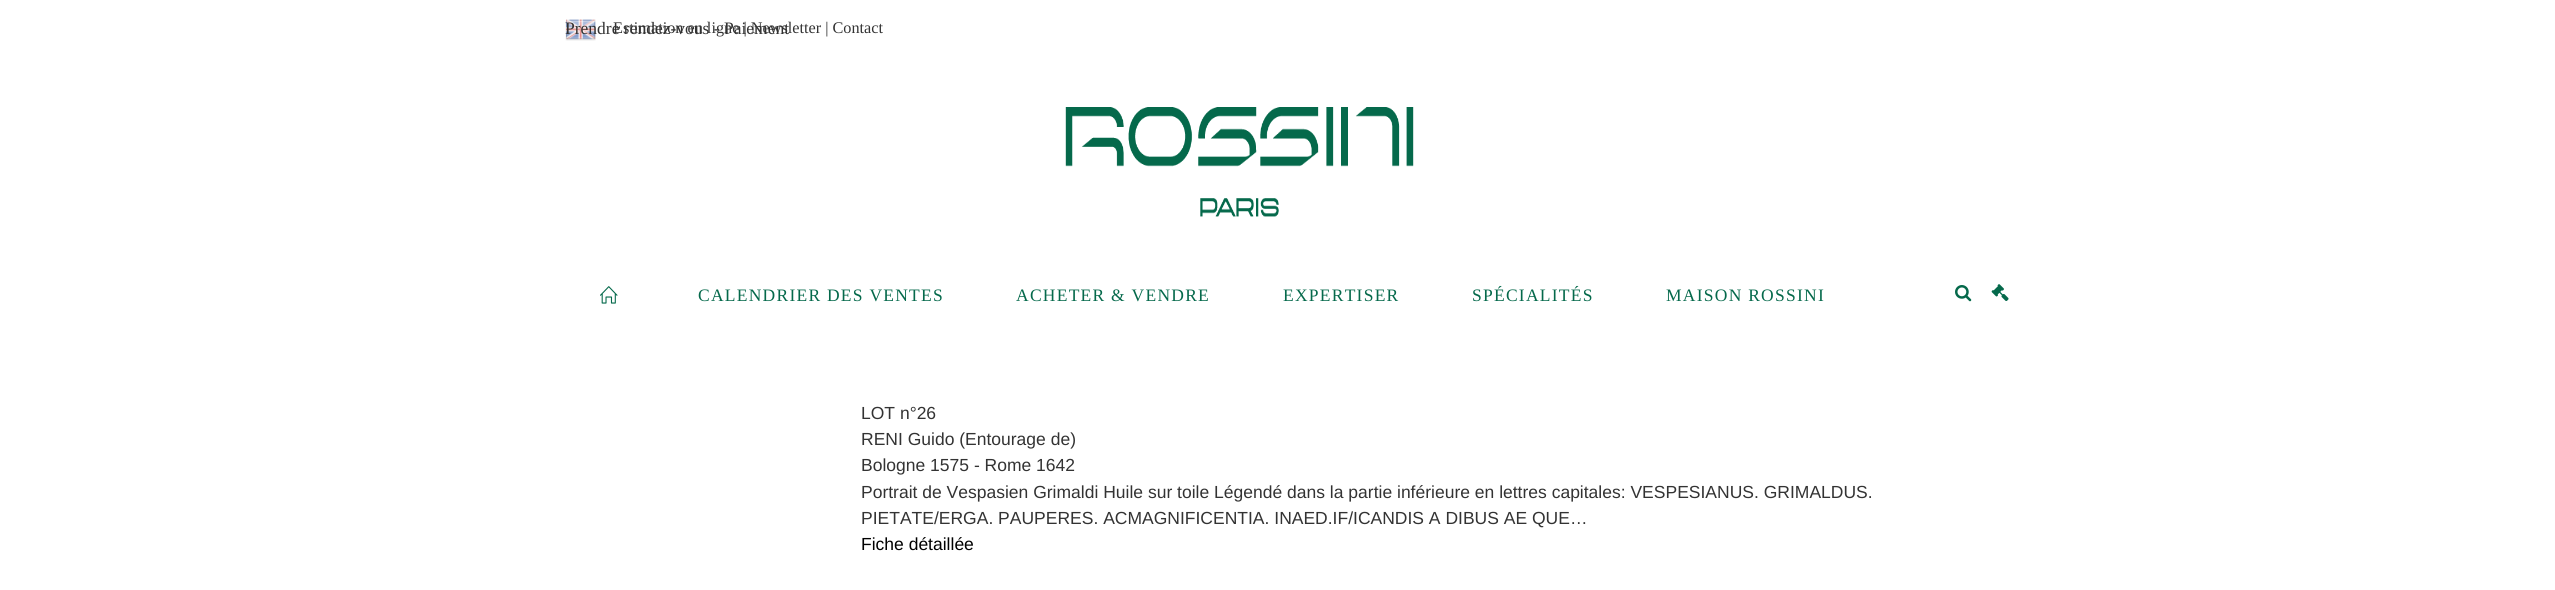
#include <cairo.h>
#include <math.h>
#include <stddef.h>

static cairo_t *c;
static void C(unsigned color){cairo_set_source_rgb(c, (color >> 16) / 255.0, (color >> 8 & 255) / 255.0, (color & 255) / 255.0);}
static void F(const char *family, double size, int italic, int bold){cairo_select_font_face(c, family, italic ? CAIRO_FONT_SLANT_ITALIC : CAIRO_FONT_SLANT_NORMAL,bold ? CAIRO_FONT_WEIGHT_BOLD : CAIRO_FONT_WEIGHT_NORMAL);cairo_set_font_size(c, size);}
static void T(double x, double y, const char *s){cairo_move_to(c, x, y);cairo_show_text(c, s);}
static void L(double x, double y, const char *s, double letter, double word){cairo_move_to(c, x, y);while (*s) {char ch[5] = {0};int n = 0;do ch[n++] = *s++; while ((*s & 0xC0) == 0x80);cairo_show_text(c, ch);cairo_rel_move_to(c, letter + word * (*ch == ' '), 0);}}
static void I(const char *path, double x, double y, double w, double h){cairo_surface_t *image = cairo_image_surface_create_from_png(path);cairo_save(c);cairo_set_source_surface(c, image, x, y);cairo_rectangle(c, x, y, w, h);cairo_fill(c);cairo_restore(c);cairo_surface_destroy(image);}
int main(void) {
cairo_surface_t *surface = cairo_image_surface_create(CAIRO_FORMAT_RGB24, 2555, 590);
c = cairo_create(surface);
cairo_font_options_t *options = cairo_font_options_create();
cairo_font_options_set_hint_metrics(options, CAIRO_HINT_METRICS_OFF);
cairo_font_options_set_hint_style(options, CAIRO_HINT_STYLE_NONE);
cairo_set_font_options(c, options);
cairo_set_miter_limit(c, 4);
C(0xffffff);
cairo_paint(c);
I("5.png",565,19,31,22);
F("Liberation Serif",16.25,0,0);
C(0x333333);
T(613,33,"Estimation en ligne | Newsletter | Contact");
F("Liberation Serif",17.5,0,0);
T(565,34,"Prendre rendez-vous - Paiement");
I("1.png",1065,107,349,110);
I("2.png",600,286,18,18);
C(0x05694b);
L(698,301,"CALENDRIER DES VENTES",1.25,0);
L(1016,301,"ACHETER & VENDRE",1.25,0);
L(1283,301,"EXPERTISER",1.25,0);
L(1472,301,"SPÉCIALITÉS",1.25,0);
L(1666,301,"MAISON ROSSINI",1.25,0);
I("3.png",1955,285,17,17);
I("4.png",1991,284,18,17);
F("Liberation Sans",17.5,0,0);
C(0x333333);
T(861,419,"LOT n°26");
T(861,445,"RENI Guido (Entourage de)");
T(861,471,"Bologne 1575 - Rome 1642");
T(861,498,"Portrait de Vespasien Grimaldi Huile sur toile Légendé dans la partie inférieure en lettres capitales: VESPESIANUS. GRIMALDUS.");
T(861,524,"PIETATE/ERGA. PAUPERES. ACMAGNIFICENTIA. INAED.IF/ICANDIS A DIBUS AE QUE…");
C(0x000000);
T(861,550,"Fiche détaillée");
cairo_surface_write_to_png(surface, "o.png");
cairo_font_options_destroy(options);
cairo_destroy(c);
cairo_surface_destroy(surface);
return 0;
}
